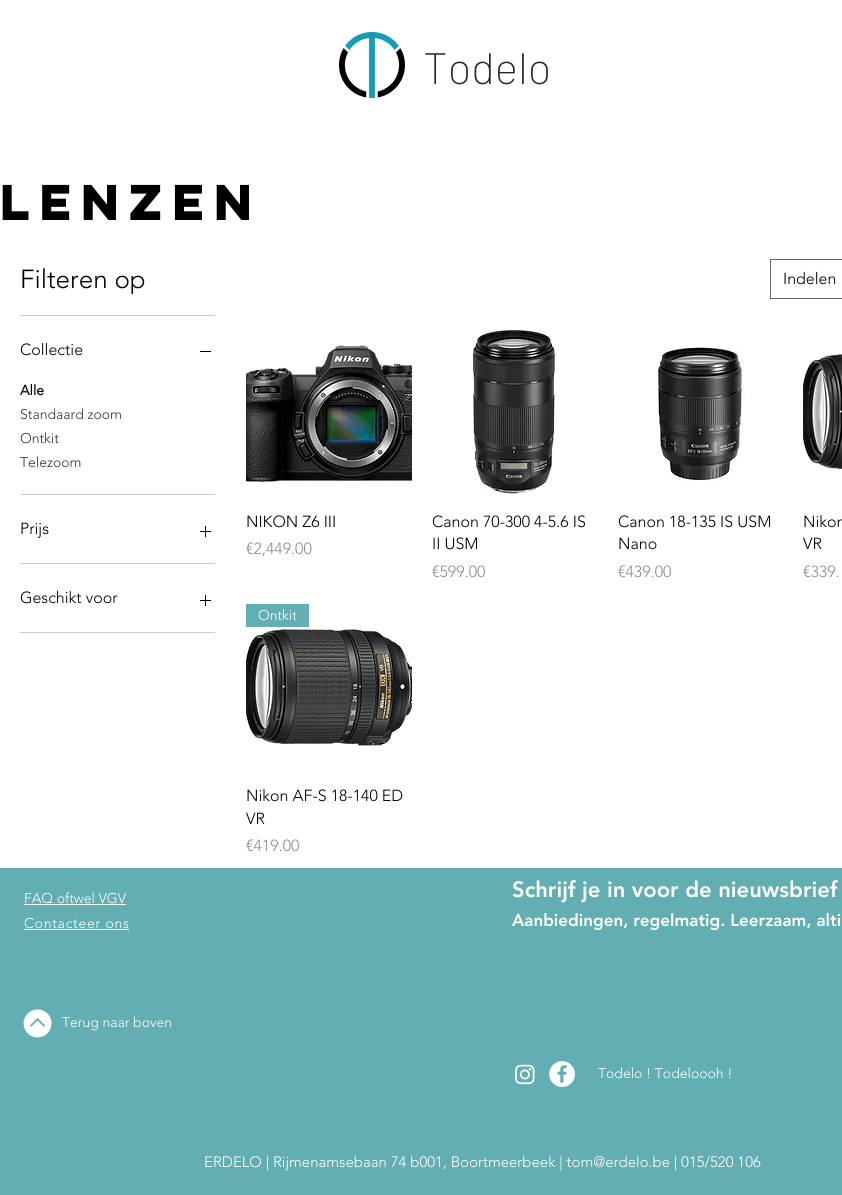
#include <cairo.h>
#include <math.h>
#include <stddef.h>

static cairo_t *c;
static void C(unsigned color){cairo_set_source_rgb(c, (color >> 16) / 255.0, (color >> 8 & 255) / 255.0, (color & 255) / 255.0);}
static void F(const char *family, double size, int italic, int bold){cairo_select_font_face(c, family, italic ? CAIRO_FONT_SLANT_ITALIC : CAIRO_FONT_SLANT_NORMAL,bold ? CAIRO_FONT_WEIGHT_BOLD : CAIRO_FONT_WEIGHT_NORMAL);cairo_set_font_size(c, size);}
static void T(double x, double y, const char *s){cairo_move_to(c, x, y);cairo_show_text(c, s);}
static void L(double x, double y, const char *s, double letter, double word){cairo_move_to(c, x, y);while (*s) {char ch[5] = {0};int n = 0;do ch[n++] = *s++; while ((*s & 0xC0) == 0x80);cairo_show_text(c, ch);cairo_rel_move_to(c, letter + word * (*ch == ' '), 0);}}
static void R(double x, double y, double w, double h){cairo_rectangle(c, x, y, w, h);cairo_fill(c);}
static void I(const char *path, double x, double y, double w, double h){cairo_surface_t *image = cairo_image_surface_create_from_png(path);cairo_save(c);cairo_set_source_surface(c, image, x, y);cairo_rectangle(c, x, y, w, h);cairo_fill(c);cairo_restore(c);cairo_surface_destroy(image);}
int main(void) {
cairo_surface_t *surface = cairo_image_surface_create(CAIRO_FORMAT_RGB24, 842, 1195);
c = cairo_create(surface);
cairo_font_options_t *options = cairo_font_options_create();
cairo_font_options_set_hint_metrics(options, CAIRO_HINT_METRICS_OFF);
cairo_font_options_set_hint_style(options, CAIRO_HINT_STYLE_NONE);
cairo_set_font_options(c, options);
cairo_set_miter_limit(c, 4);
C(0xffffff);
cairo_paint(c);
I("1.png",339,32,66,66);
F("Barlow ExtraLight",44,0,0);
C(0x292929);
T(423,84,"Todelo");
F("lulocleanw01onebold",45,0,1);
C(0x000000);
T(0,220,"Lenzen");
C(0xcccccc);
R(20,315,195,1);
F("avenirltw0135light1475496 Light",26,0,0);
C(0x000000);
T(20,288,"Filteren op");
C(0xcccccc);
R(20,494,195,1);
F("avenirltw0135light1475496 Light",16,0,0);
C(0x000000);
T(20,355,"Collectie");
R(200,351,11,1);
F("avenirltw0135light1475496",14,0,1);
T(20,395,"Alle");
F("avenirltw0135light1475496 Light",14,0,0);
C(0x333333);
T(20,419,"Standaard zoom");
T(20,443,"Ontkit");
T(20,467,"Telezoom");
C(0xcccccc);
R(20,563,195,1);
F("avenirltw0135light1475496 Light",16,0,0);
C(0x000000);
T(20,534,"Prijs");
I("2.png",200,526,11,11);
C(0xcccccc);
R(20,632,195,1);
C(0x000000);
T(20,603,"Geschikt voor");
I("2.png",200,595,11,11);
cairo_rectangle(c,770.5,259.5,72,39);
C(0x666666);
cairo_set_line_width(c,1);
cairo_stroke(c);
C(0x000000);
T(783,284,"Indelen");
I("3.png",246,345,166,137);
T(246,527,"NIKON Z6 III");
C(0x8c8c8c);
T(246,554,"€2,449.00");
I("4.png",472,329,84,165);
C(0x000000);
T(432,527,"Canon 70-300 4-5.6 IS");
T(432,549,"II USM");
C(0x8c8c8c);
T(432,577,"€599.00");
I("5.png",657,345,88,136);
C(0x000000);
T(618,527,"Canon 18-135 IS USM");
T(618,549,"Nano");
C(0x8c8c8c);
T(618,577,"€439.00");
I("6.png",803,354,39,115);
C(0x000000);
T(803,527,"Nikon");
T(803,549,"VR");
C(0x8c8c8c);
T(803,577,"€339.");
C(0x62aeb3);
R(246,604,63,23);
F("avenirltw0135light1475496 Light",14,0,0);
C(0xffffff);
T(258,620,"Ontkit");
I("7.png",246,629,166,117);
F("avenirltw0135light1475496 Light",16,0,0);
C(0x000000);
T(246,801,"Nikon AF-S 18-140 ED");
T(246,824,"VR");
C(0x8c8c8c);
T(246,851,"€419.00");
C(0x62aeb3);
R(0,868,842,327);
F("avenirltw0135light1475496 Light",14,0,0);
C(0xffffff);
T(24,903,"FAQ oftwel VGV");
R(24,904,102,1);
L(24,928,"Contacteer ons",.75,0);
R(24,929,105,1);
F("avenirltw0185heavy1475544 Black",22,0,0);
T(512,897,"Schrijf je in voor de nieuwsbrief");
F("avenirltw0185heavy1475544 Black",17,0,0);
T(512,926,"Aanbiedingen, regelmatig. Leerzaam, alti");
I("8.png",23,1009,29,29);
F("avenirltw0135light1475496 Light",14,0,0);
T(62,1027,"Terug naar boven");
I("9.png",515,1064,20,21);
I("10.png",549,1061,26,26);
T(598,1078,"Todelo ! Todeloooh !");
F("avenirltw0135light1475496 Light",15,0,0);
T(204,1167,"ERDELO | Rijmenamsebaan 74 b001, Boortmeerbeek | tom@erdelo.be | 015/520 106");
cairo_surface_write_to_png(surface, "o.png");
cairo_font_options_destroy(options);
cairo_destroy(c);
cairo_surface_destroy(surface);
return 0;
}
